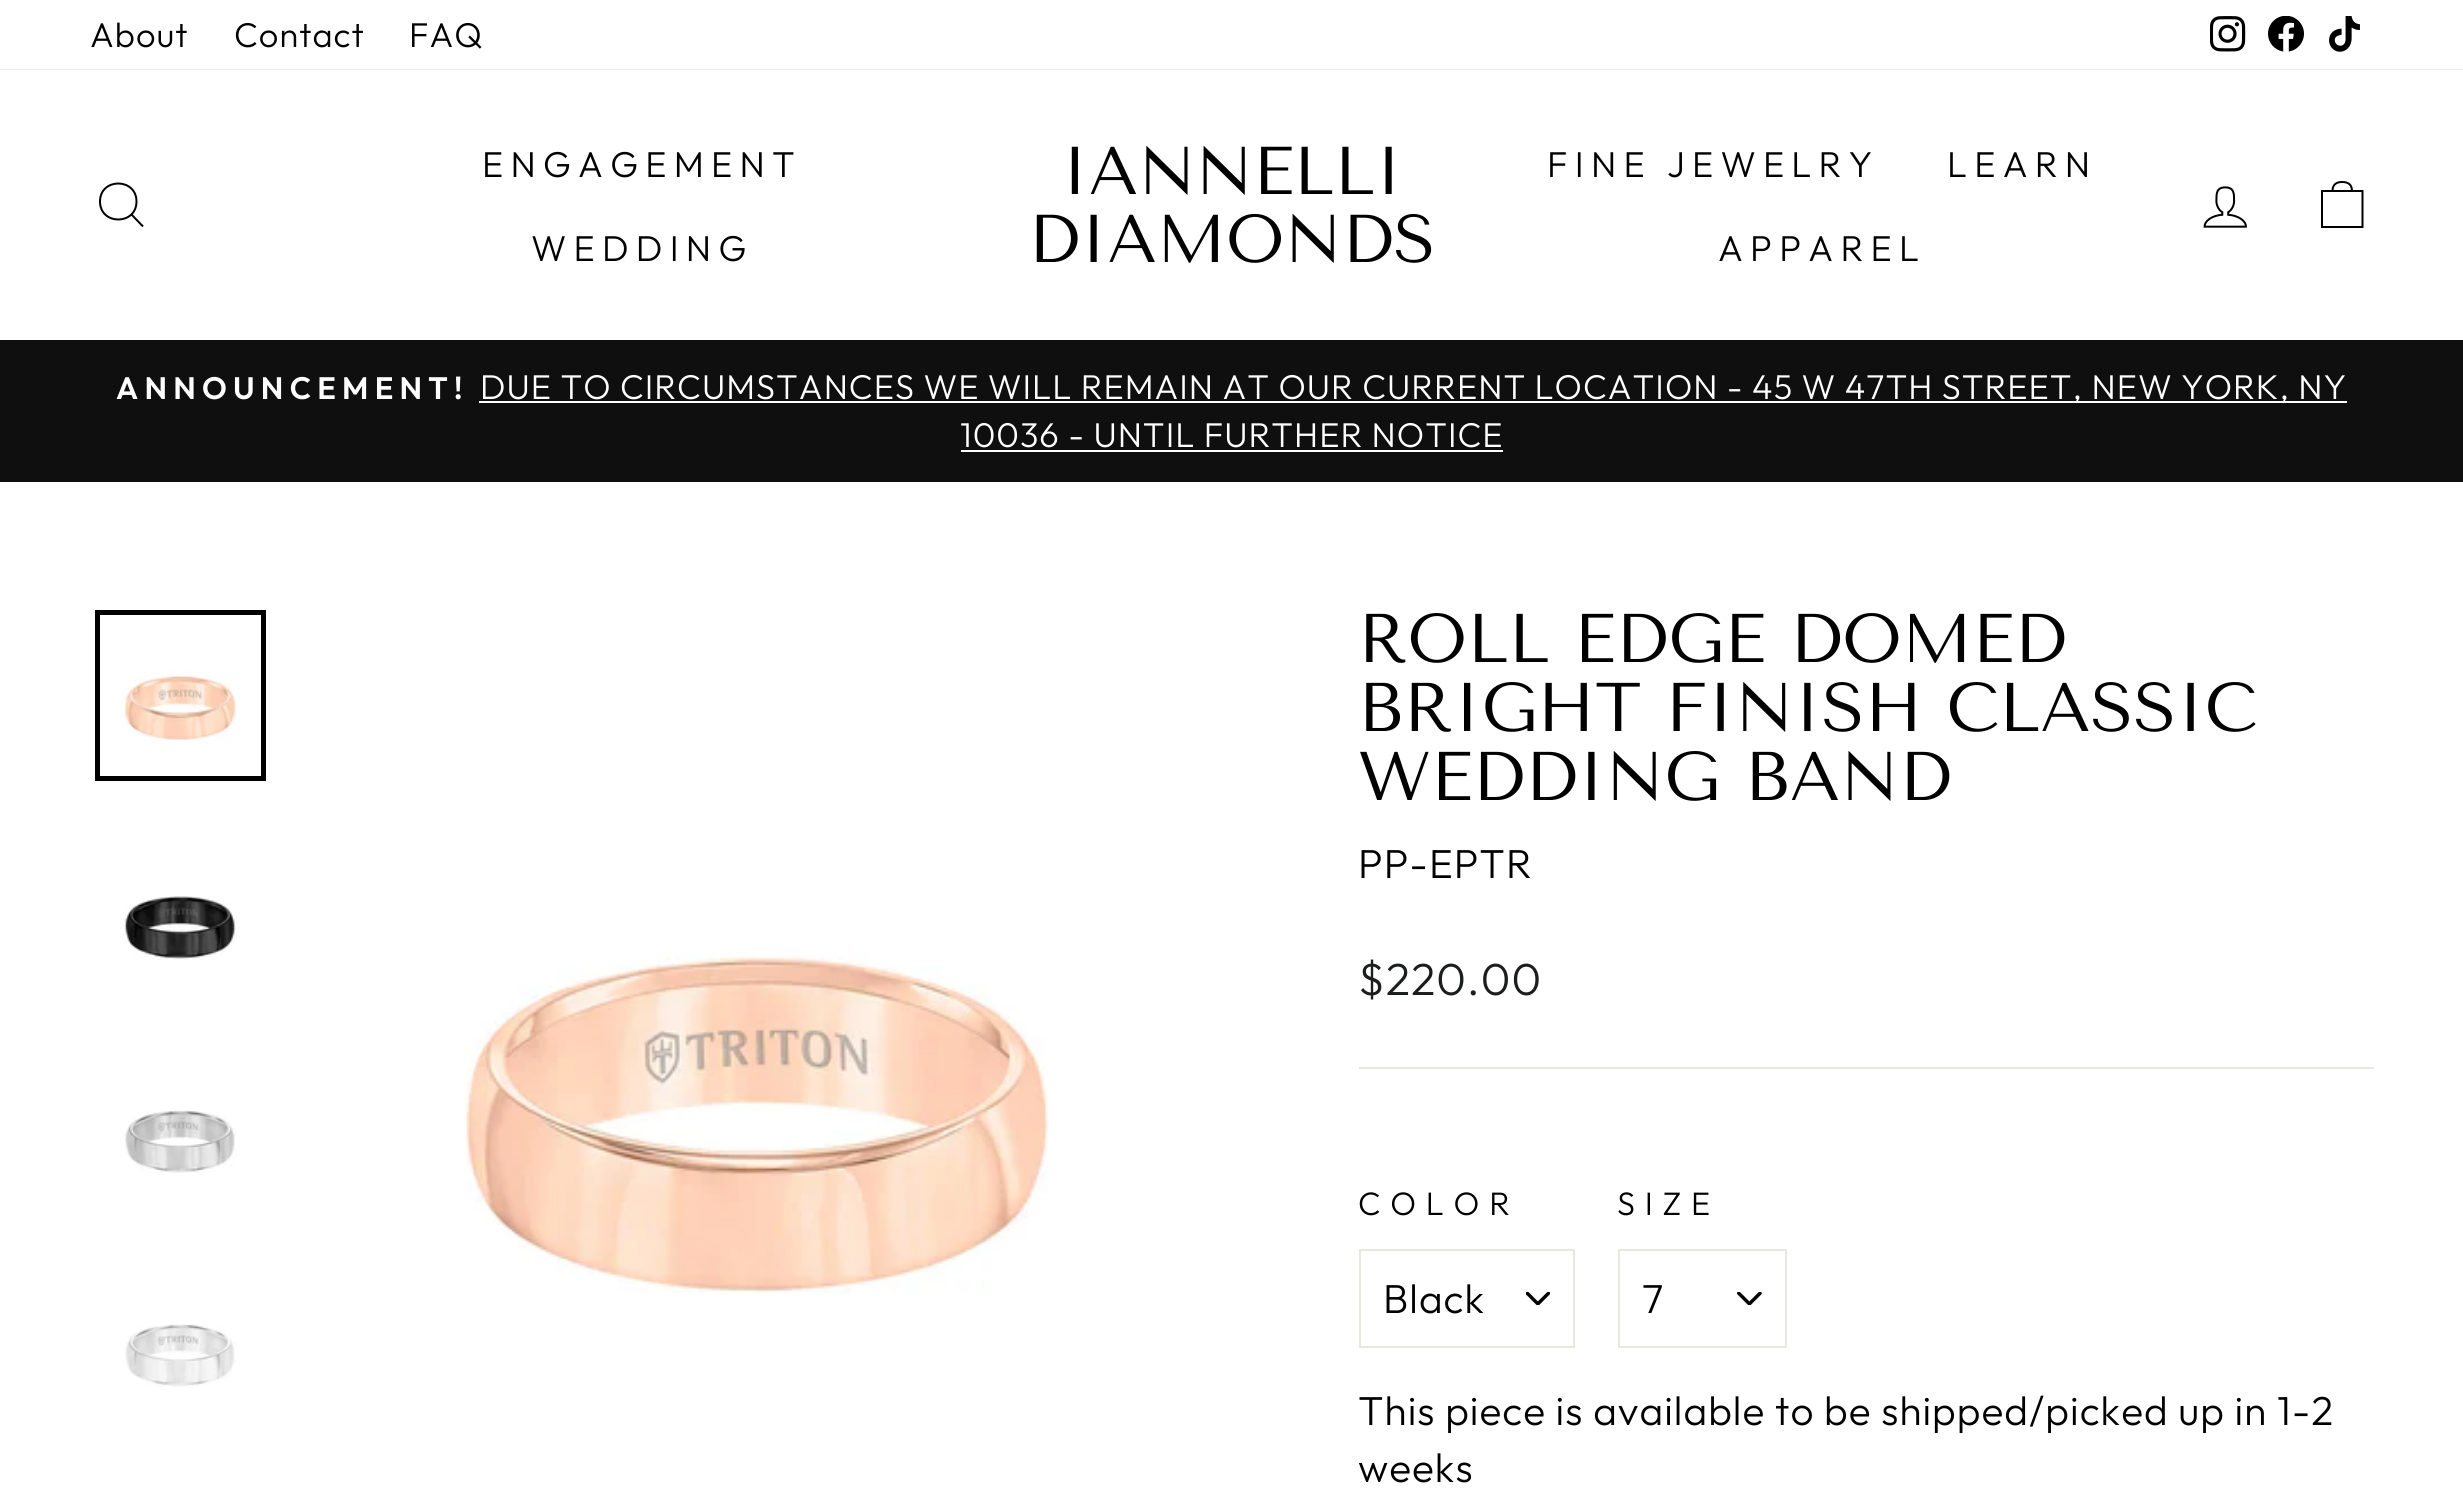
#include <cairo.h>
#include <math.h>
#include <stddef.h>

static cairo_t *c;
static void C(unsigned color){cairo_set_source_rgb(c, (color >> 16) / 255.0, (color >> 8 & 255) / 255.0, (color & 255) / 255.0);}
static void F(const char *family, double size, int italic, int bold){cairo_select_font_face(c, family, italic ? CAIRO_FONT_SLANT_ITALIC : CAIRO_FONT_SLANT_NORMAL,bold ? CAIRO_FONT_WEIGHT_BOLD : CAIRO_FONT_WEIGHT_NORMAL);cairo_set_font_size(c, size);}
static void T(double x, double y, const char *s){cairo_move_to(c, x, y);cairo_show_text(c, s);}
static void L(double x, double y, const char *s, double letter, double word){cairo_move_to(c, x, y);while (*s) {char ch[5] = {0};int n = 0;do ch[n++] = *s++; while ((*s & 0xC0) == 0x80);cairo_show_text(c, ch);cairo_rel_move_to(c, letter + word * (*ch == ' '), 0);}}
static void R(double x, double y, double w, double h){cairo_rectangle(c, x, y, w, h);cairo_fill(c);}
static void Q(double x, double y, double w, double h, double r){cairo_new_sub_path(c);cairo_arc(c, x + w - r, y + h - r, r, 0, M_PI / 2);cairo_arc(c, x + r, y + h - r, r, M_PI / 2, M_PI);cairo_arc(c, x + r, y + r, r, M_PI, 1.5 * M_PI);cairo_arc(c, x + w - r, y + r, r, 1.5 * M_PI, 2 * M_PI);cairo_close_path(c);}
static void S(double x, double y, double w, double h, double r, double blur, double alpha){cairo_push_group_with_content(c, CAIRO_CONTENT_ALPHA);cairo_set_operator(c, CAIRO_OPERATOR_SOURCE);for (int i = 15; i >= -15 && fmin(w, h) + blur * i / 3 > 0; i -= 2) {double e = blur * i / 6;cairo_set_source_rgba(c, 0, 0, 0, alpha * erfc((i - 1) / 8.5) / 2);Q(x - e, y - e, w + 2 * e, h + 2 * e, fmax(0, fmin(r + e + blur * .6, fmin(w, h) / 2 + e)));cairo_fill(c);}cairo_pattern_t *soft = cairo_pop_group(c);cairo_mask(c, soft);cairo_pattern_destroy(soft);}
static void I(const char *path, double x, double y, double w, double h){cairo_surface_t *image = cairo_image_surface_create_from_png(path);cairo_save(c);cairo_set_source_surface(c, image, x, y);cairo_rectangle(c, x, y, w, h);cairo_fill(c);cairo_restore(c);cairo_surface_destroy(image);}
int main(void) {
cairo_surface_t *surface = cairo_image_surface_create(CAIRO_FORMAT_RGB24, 2463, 1499);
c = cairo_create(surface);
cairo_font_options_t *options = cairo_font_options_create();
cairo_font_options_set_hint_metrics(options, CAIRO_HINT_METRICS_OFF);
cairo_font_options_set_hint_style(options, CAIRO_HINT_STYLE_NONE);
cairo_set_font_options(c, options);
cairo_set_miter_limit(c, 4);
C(0xffffff);
cairo_paint(c);
F("Outfit Light",34.43,0,0);
C(0x000000);
L(90,47,"About",1,0);
L(234,47,"Contact",1,0);
L(409,47,"FAQ",1,0);
I("1.png",2210,16,36,36);
I("2.png",2268,16,36,36);
I("3.png",2329,16,31,36);
C(0x0f0f0f);
R(0,340,2463,142);
C(0x000000);
S(0,70,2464,270,0,1,.2);
C(0xffffff);
R(0,70,2463,270);
cairo_new_path(c);
cairo_move_to(c,136.5,201.5);
cairo_curve_to(c,136.5,225.5,100,225.5,100,201.5);
cairo_curve_to(c,100,177.5,136.5,177.5,136.5,201.5);
cairo_close_path(c);
cairo_move_to(c,143,226.5);
cairo_line_to(c,131.5,214.5);
C(0x000000);
cairo_stroke(c);
F("Outfit Light",36,0,0);
L(482,177,"ENGAGEMENT",7.25,0);
L(531,261,"WEDDING",7.25,0);
F("Tenor Sans",67.5,0,0);
T(1061,194,"IANNELLI");
T(1028,262,"DIAMONDS");
F("Outfit Light",36,0,0);
L(1547,177,"FINE JEWELRY",7.25,0);
L(1947,177,"LEARN",7.25,0);
L(1718,261,"APPAREL",7.25,0);
I("4.png",2203,186,44,42);
cairo_new_path(c);
cairo_move_to(c,2322,191);
cairo_line_to(c,2362.5,191);
cairo_line_to(c,2362.5,227);
cairo_line_to(c,2322,227);
cairo_close_path(c);
cairo_move_to(c,2332.5,191);
cairo_curve_to(c,2332.5,184,2337,182,2342,182);
cairo_curve_to(c,2347.5,182,2352,184,2352,191);
cairo_stroke(c);
F("Outfit SemiBold",31,0,0);
C(0xffffff);
L(116,399,"ANNOUNCEMENT!",6.25,0);
R(479,401,1868,2);
F("Outfit Light",34.43,0,0);
L(480,399,"DUE TO CIRCUMSTANCES WE WILL REMAIN AT OUR CURRENT LOCATION - 45 W 47TH STREET, NEW YORK, NY",1,0);
L(960,447,"10036 - UNTIL FURTHER NOTICE",1,0);
R(961,450,542,2);
I("5.png",124,669,113,76);
cairo_rectangle(c,97.5,612.5,166,166);
C(0x000000);
cairo_set_line_width(c,5);
cairo_stroke(c);
I("6.png",123,896,114,64);
I("7.png",123,1110,114,63);
I("8.png",125,1324,112,63);
I("9.png",464,952,585,342);
F("Tenor Sans",68.8,0,0);
T(1358,662,"ROLL EDGE DOMED");
T(1358,731,"BRIGHT FINISH CLASSIC");
T(1358,800,"WEDDING BAND");
F("Outfit Light",40.5,0,0);
L(1358,878,"PP-EPTR",1,0);
F("Outfit Light",45,0,0);
C(0x1c1d1d);
L(1358,995,"$220.00",1,0);
C(0xe8e8e1);
R(1359,1067,1015,2);
F("Outfit Light",32.5,0,0);
C(0x000000);
L(1358,1215,"COLOR",9.75,0);
I("10.png",1526,1292,24,13);
cairo_rectangle(c,1360,1250,214,97);
C(0xe8e8e1);
cairo_set_line_width(c,2);
cairo_stroke(c);
F("Outfit Light",40.5,0,0);
C(0x000000);
L(1383,1313,"Black",1,0);
F("Outfit Light",32.5,0,0);
L(1617,1215,"SIZE",9.75,0);
I("11.png",1737,1292,25,13);
cairo_rectangle(c,1619,1250,167,97);
C(0xe8e8e1);
cairo_stroke(c);
F("Outfit Light",40.5,0,0);
C(0x000000);
L(1642,1313,"7",1,0);
L(1358,1425,"This piece is available to be shipped/picked up in 1-2",1,0);
L(1358,1482,"weeks",1,0);
cairo_surface_write_to_png(surface, "o.png");
cairo_font_options_destroy(options);
cairo_destroy(c);
cairo_surface_destroy(surface);
return 0;
}
